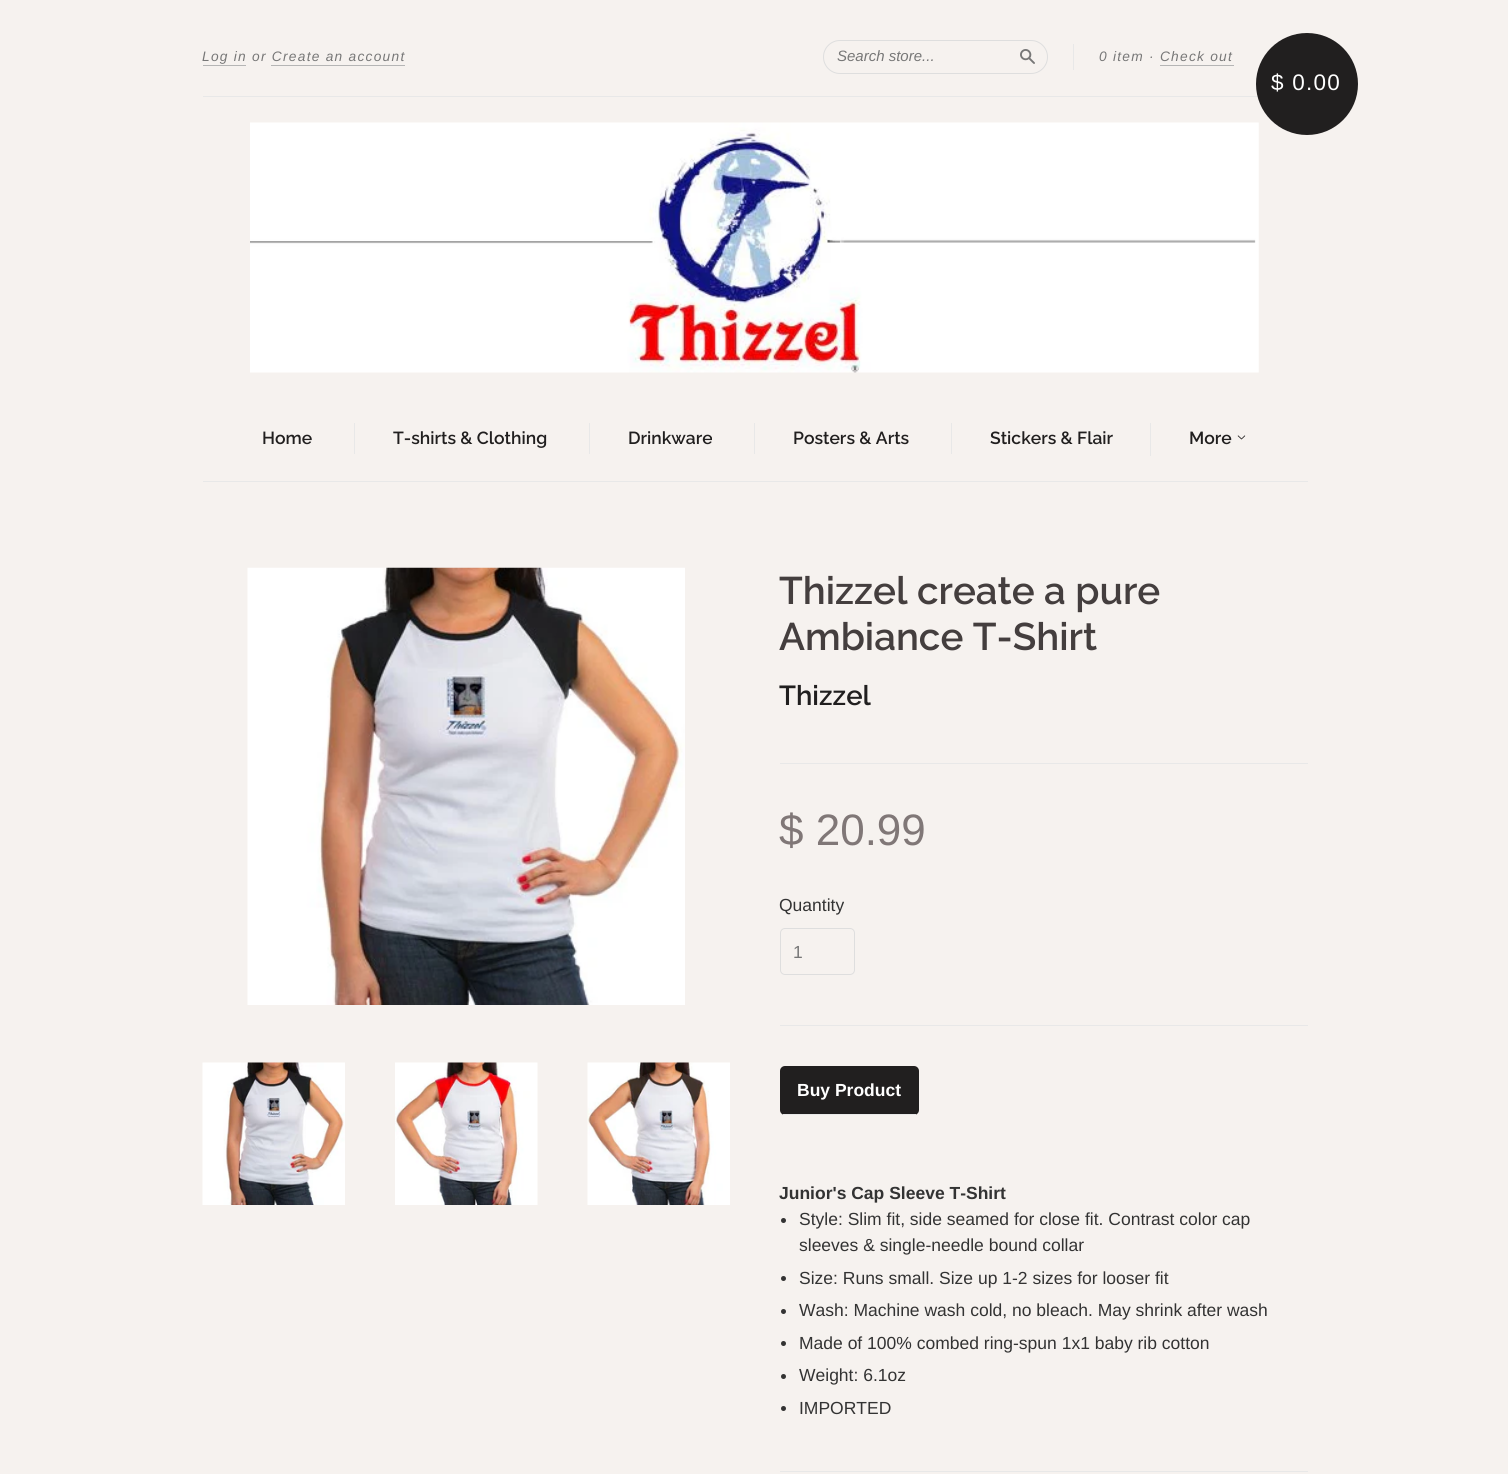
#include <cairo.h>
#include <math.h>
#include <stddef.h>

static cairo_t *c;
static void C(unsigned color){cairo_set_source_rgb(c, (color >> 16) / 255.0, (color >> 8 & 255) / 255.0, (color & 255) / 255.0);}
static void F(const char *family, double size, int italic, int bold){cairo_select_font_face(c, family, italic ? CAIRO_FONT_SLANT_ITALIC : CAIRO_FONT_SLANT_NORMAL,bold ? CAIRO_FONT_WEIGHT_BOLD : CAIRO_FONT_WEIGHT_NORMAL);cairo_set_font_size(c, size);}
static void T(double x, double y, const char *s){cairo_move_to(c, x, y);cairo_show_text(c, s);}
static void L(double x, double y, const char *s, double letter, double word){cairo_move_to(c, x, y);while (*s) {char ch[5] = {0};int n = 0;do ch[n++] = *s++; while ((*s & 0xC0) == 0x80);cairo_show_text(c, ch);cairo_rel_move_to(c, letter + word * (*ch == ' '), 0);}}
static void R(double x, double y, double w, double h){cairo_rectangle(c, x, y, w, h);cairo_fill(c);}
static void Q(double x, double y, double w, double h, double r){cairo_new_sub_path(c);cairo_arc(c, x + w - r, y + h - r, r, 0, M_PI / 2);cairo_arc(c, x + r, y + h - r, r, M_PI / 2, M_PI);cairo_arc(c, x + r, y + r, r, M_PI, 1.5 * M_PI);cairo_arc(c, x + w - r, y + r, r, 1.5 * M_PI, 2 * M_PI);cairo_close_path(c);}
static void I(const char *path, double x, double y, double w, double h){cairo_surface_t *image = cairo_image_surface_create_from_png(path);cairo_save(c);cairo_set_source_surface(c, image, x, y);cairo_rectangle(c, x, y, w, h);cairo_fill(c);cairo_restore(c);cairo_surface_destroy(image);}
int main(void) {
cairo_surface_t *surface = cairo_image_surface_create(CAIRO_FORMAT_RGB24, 1508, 1474);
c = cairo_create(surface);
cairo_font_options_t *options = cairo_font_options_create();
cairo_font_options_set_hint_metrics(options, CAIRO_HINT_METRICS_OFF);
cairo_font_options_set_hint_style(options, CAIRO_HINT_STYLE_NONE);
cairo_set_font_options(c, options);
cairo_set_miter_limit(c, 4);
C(0xf6f2ef);
cairo_paint(c);
C(0xe8e8e8);
R(203,481,1105,1);
R(203,96,1055,1);
F("Liberation Sans",13.75,1,0);
C(0x777777);
L(202,61,"Log in or Create an account",1.25,0);
C(0xb5b5b5);
R(203,65,43,1);
R(271,65,134,1);
Q(823.5,40.5,224,33,16.5);
C(0xdedede);
cairo_set_line_width(c,1);
cairo_stroke(c);
F("Liberation Sans",15,1,0);
C(0x777777);
T(837,61,"Search store...");
I("1.png",1020,49,15,15);
C(0xe8e8e8);
R(1073,44,1,26);
F("Liberation Sans",13.75,1,0);
C(0x777777);
L(1099,61,"0 item · Check out",1.25,0);
C(0xb5b5b5);
R(1160,65,74,1);
I("2.png",250,122,1009,251);
C(0x211f1f);
cairo_arc(c,1307,84,51,0,2 * M_PI);
cairo_fill(c);
F("Liberation Sans",22.5,0,0);
C(0xffffff);
L(1271,90,"$ 0.00",1.25,0);
F("Raleway Thin",17.5,0,0);
C(0x211f1f);
T(262,444,"Home");
C(0xe8e8e8);
R(354,423,1,31);
C(0x211f1f);
T(393,444,"T-shirts & Clothing");
C(0xe8e8e8);
R(589,423,1,31);
C(0x211f1f);
T(628,444,"Drinkware");
C(0xe8e8e8);
R(754,423,1,31);
C(0x211f1f);
T(793,444,"Posters & Arts");
C(0xe8e8e8);
R(951,423,1,31);
C(0x211f1f);
T(990,444,"Stickers & Flair");
C(0xe8e8e8);
R(1150,423,1,33);
C(0x211f1f);
T(1189,444,"More");
I("3.png",1237,435,9,5);
I("4.png",247,567,438,438);
I("5.png",202,1062,143,143);
I("6.png",395,1062,143,143);
I("7.png",587,1062,143,143);
F("Raleway Thin",38.5,0,0);
C(0x443e3e);
T(779,604,"Thizzel create a pure");
T(779,650,"Ambiance T-Shirt");
F("Raleway Thin",27.5,0,0);
C(0x211f1f);
T(779,705,"Thizzel");
C(0xe8e8e8);
R(780,763,528,1);
F("Liberation Sans",44,0,0);
C(0x807777);
T(779,845,"$ 20.99");
F("Liberation Sans",17.5,0,0);
C(0x333333);
T(779,911,"Quantity");
Q(780.5,928.5,74,46,4.5);
C(0xdedede);
cairo_stroke(c);
C(0x777777);
T(793,958,"1");
C(0xe8e8e8);
R(780,1025,528,1);
C(0x211f1f);
Q(780,1066,139,49,5);
cairo_fill(c);
F("Liberation Sans",17.5,0,1);
C(0xffffff);
T(797,1096,"Buy Product");
C(0xe8e8e8);
R(783,1114,133,1);
C(0x333333);
T(779,1199,"Junior's Cap Sleeve T-Shirt");
cairo_new_path(c);
cairo_arc(c,783.5,1220.5,2.5,0,2 * M_PI);
cairo_fill(c);
F("Liberation Sans",17.5,0,0);
T(799,1225,"Style: Slim fit, side seamed for close fit. Contrast color cap");
T(799,1251,"sleeves & single-needle bound collar");
cairo_new_path(c);
cairo_arc(c,783.5,1278.5,2.5,0,2 * M_PI);
cairo_fill(c);
T(799,1284,"Size: Runs small. Size up 1-2 sizes for looser fit");
cairo_new_path(c);
cairo_arc(c,783.5,1311.5,2.5,0,2 * M_PI);
cairo_fill(c);
T(799,1316,"Wash: Machine wash cold, no bleach. May shrink after wash");
cairo_new_path(c);
cairo_arc(c,783.5,1343.5,2.5,0,2 * M_PI);
cairo_fill(c);
T(799,1349,"Made of 100% combed ring-spun 1x1 baby rib cotton");
cairo_new_path(c);
cairo_arc(c,783.5,1376.5,2.5,0,2 * M_PI);
cairo_fill(c);
T(799,1381,"Weight: 6.1oz");
cairo_new_path(c);
cairo_arc(c,783.5,1408.5,2.5,0,2 * M_PI);
cairo_fill(c);
T(799,1414,"IMPORTED");
C(0xe8e8e8);
R(780,1471,528,1);
cairo_surface_write_to_png(surface, "o.png");
cairo_font_options_destroy(options);
cairo_destroy(c);
cairo_surface_destroy(surface);
return 0;
}
